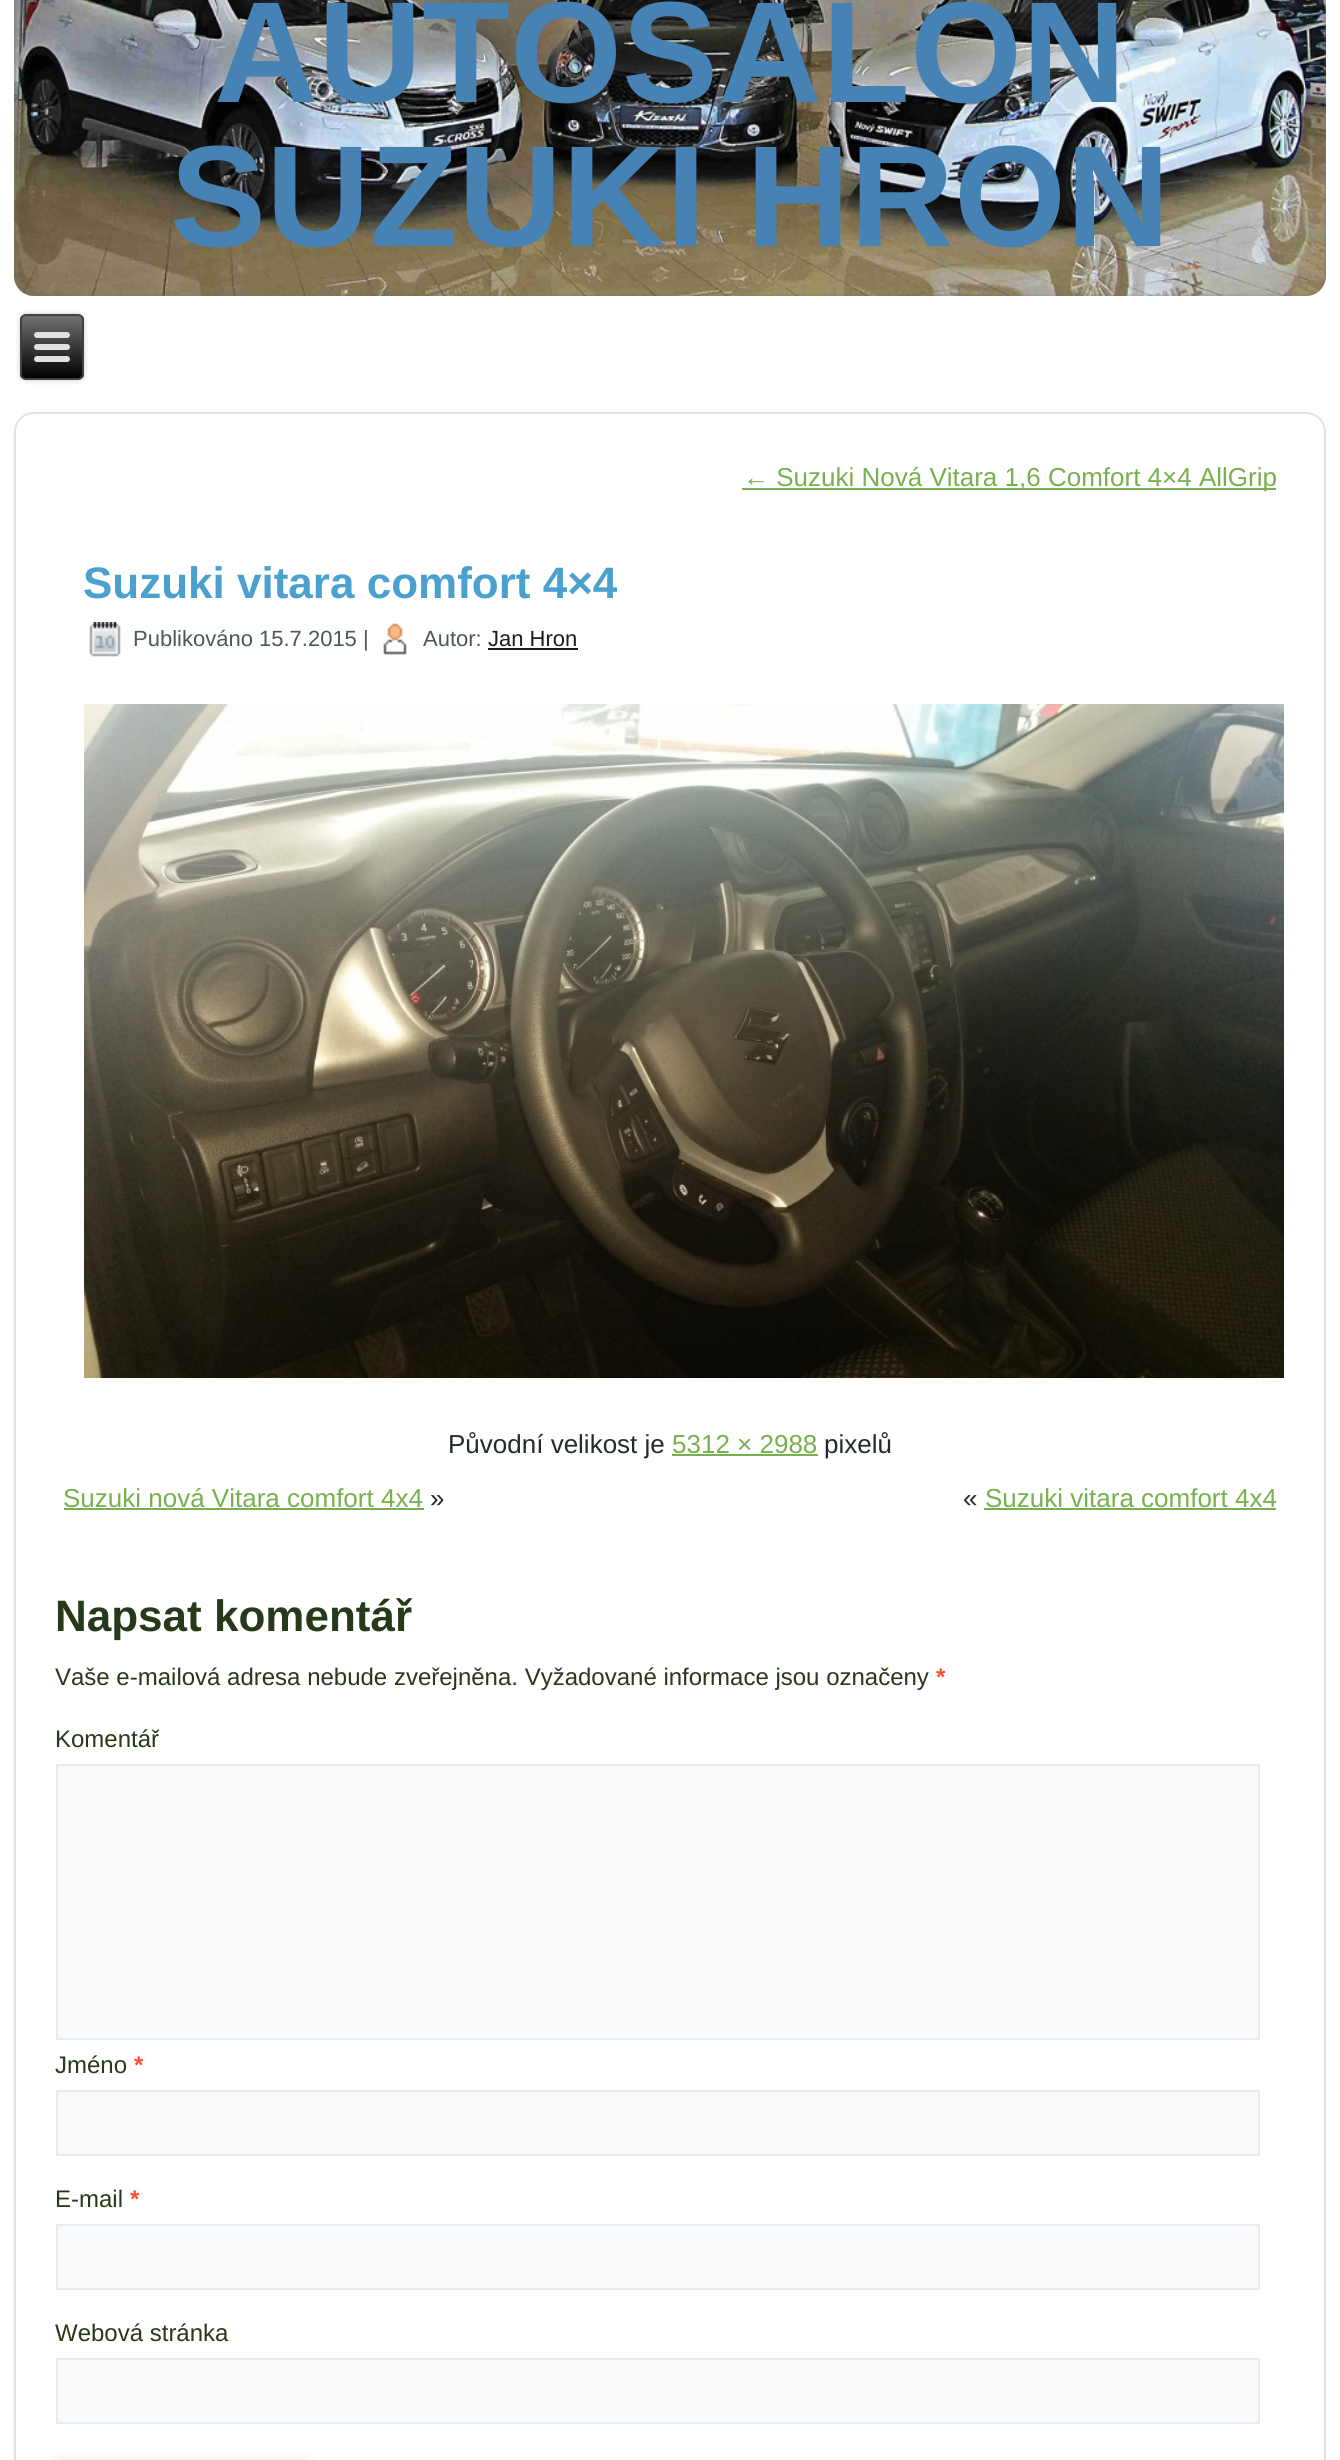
#include <cairo.h>
#include <math.h>
#include <stddef.h>

static cairo_t *c;
static void C(unsigned color){cairo_set_source_rgb(c, (color >> 16) / 255.0, (color >> 8 & 255) / 255.0, (color & 255) / 255.0);}
static void F(const char *family, double size, int italic, int bold){cairo_select_font_face(c, family, italic ? CAIRO_FONT_SLANT_ITALIC : CAIRO_FONT_SLANT_NORMAL,bold ? CAIRO_FONT_WEIGHT_BOLD : CAIRO_FONT_WEIGHT_NORMAL);cairo_set_font_size(c, size);}
static void T(double x, double y, const char *s){cairo_move_to(c, x, y);cairo_show_text(c, s);}
static void R(double x, double y, double w, double h){cairo_rectangle(c, x, y, w, h);cairo_fill(c);}
static void Q(double x, double y, double w, double h, double r){cairo_new_sub_path(c);cairo_arc(c, x + w - r, y + h - r, r, 0, M_PI / 2);cairo_arc(c, x + r, y + h - r, r, M_PI / 2, M_PI);cairo_arc(c, x + r, y + r, r, M_PI, 1.5 * M_PI);cairo_arc(c, x + w - r, y + r, r, 1.5 * M_PI, 2 * M_PI);cairo_close_path(c);}
static void S(double x, double y, double w, double h, double r, double blur, double alpha){cairo_push_group_with_content(c, CAIRO_CONTENT_ALPHA);cairo_set_operator(c, CAIRO_OPERATOR_SOURCE);for (int i = 15; i >= -15 && fmin(w, h) + blur * i / 3 > 0; i -= 2) {double e = blur * i / 6;cairo_set_source_rgba(c, 0, 0, 0, alpha * erfc((i - 1) / 8.5) / 2);Q(x - e, y - e, w + 2 * e, h + 2 * e, fmax(0, fmin(r + e + blur * .6, fmin(w, h) / 2 + e)));cairo_fill(c);}cairo_pattern_t *soft = cairo_pop_group(c);cairo_mask(c, soft);cairo_pattern_destroy(soft);}
static void I(const char *path, double x, double y, double w, double h){cairo_surface_t *image = cairo_image_surface_create_from_png(path);cairo_save(c);cairo_set_source_surface(c, image, x, y);cairo_rectangle(c, x, y, w, h);cairo_fill(c);cairo_restore(c);cairo_surface_destroy(image);}
int main(void) {
cairo_surface_t *surface = cairo_image_surface_create(CAIRO_FORMAT_RGB24, 1340, 2460);
c = cairo_create(surface);
cairo_font_options_t *options = cairo_font_options_create();
cairo_font_options_set_hint_metrics(options, CAIRO_HINT_METRICS_OFF);
cairo_font_options_set_hint_style(options, CAIRO_HINT_STYLE_NONE);
cairo_set_font_options(c, options);
cairo_set_miter_limit(c, 4);
cairo_pattern_t *gradient;
C(0xffffff);
cairo_paint(c);
I("1.png",14,0,1312,296);
cairo_new_path(c);
cairo_move_to(c,15,-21);
cairo_line_to(c,1325,-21);
cairo_line_to(c,1325,276);
cairo_curve_to(c,1325,286.5,1316.5,295,1306,295);
cairo_line_to(c,34,295);
cairo_curve_to(c,23.5,295,15,286.5,15,276);
cairo_close_path(c);
cairo_set_source_rgba(c,0.392,0.463,0.49,0.2);
cairo_stroke(c);
F("Liberation Sans",144,0,1);
C(0x4682b4);
T(214,102,"AUTOSALON");
T(170,246,"SUZUKI HRON");
C(0x000000);
S(20,314,64,66,6,3,.2);
cairo_save(c);
Q(20,314,64,66,6);
cairo_clip(c);
gradient = cairo_pattern_create_linear(52,316,52,378);
cairo_pattern_add_color_stop_rgba(gradient,0,0.439,0.439,0.439,1);
cairo_pattern_add_color_stop_rgba(gradient,1,0,0,0,1);
cairo_set_source(c,gradient);
cairo_pattern_destroy(gradient);
R(20,316,64,62);
cairo_restore(c);
Q(21,315,62,64,5);
C(0x404040);
cairo_stroke(c);
C(0xe0e0e0);
Q(34,332,36,6,3);
cairo_fill(c);
Q(34,344,36,6,3);
cairo_fill(c);
Q(34,356,36,6,3);
cairo_fill(c);
Q(15,413,1310,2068,19);
C(0xe0e4e5);
cairo_stroke(c);
C(0x77b14e);
R(742,488,534,2);
F("Liberation Sans",26,0,0);
T(743,486,"← Suzuki Nová Vitara 1,6 Comfort 4×4 AllGrip");
F("Liberation Sans",44,0,1);
C(0x4aa0cf);
T(83,598,"Suzuki vitara comfort 4×4");
I("2.png",89,622,32,35);
F("Liberation Sans",22,0,0);
C(0x4b585d);
T(133,646,"Publikováno 15.7.2015 |");
I("3.png",383,623,24,32);
T(423,646,"Autor:");
C(0x191d1f);
T(488,646,"Jan Hron");
R(488,648,90,2);
I("4.png",84,704,1200,674);
F("Liberation Sans",26,0,0);
C(0x242b2d);
T(448,1453,"Původní velikost je");
C(0x77b14e);
T(672,1453,"5312 × 2988");
R(672,1454,146,2);
C(0x242b2d);
T(824,1453,"pixelů");
C(0x77b14e);
T(63,1507,"Suzuki nová Vitara comfort 4x4");
R(64,1508,360,2);
C(0x242b2d);
T(430,1507,"»");
T(963,1507,"«");
C(0x77b14e);
T(985,1507,"Suzuki vitara comfort 4x4");
R(984,1508,292,2);
F("Liberation Sans",44,0,1);
C(0x263919);
T(55,1631,"Napsat komentář");
F("Liberation Sans",24,0,0);
T(55,1685,"Vaše e-mailová adresa nebude zveřejněna. Vyžadované informace jsou označeny");
F("Liberation Sans",24,0,1);
C(0xff4b33);
T(936,1685,"*");
F("Liberation Sans",24,0,0);
C(0x263919);
T(55,1747,"Komentář");
C(0xf9fafb);
cairo_rectangle(c,57,1765,1202,274);
cairo_fill_preserve(c);
C(0xe8ebed);
cairo_stroke(c);
C(0x263919);
T(55,2073,"Jméno");
F("Liberation Sans",24,0,1);
C(0xff4b33);
T(134,2073,"*");
C(0xf9fafb);
cairo_rectangle(c,57,2091,1202,64);
cairo_fill_preserve(c);
C(0xe8ebed);
cairo_stroke(c);
F("Liberation Sans",24,0,0);
C(0x263919);
T(55,2207,"E-mail");
F("Liberation Sans",24,0,1);
C(0xff4b33);
T(130,2207,"*");
C(0xf9fafb);
cairo_rectangle(c,57,2225,1202,64);
cairo_fill_preserve(c);
C(0xe8ebed);
cairo_stroke(c);
F("Liberation Sans",24,0,0);
C(0x263919);
T(55,2341,"Webová stránka");
C(0xf9fafb);
cairo_rectangle(c,57,2359,1202,64);
cairo_fill_preserve(c);
C(0xe8ebed);
cairo_stroke(c);
C(0x000000);
S(50,2460,264,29,14,5,.1);
cairo_surface_write_to_png(surface, "o.png");
cairo_font_options_destroy(options);
cairo_destroy(c);
cairo_surface_destroy(surface);
return 0;
}
